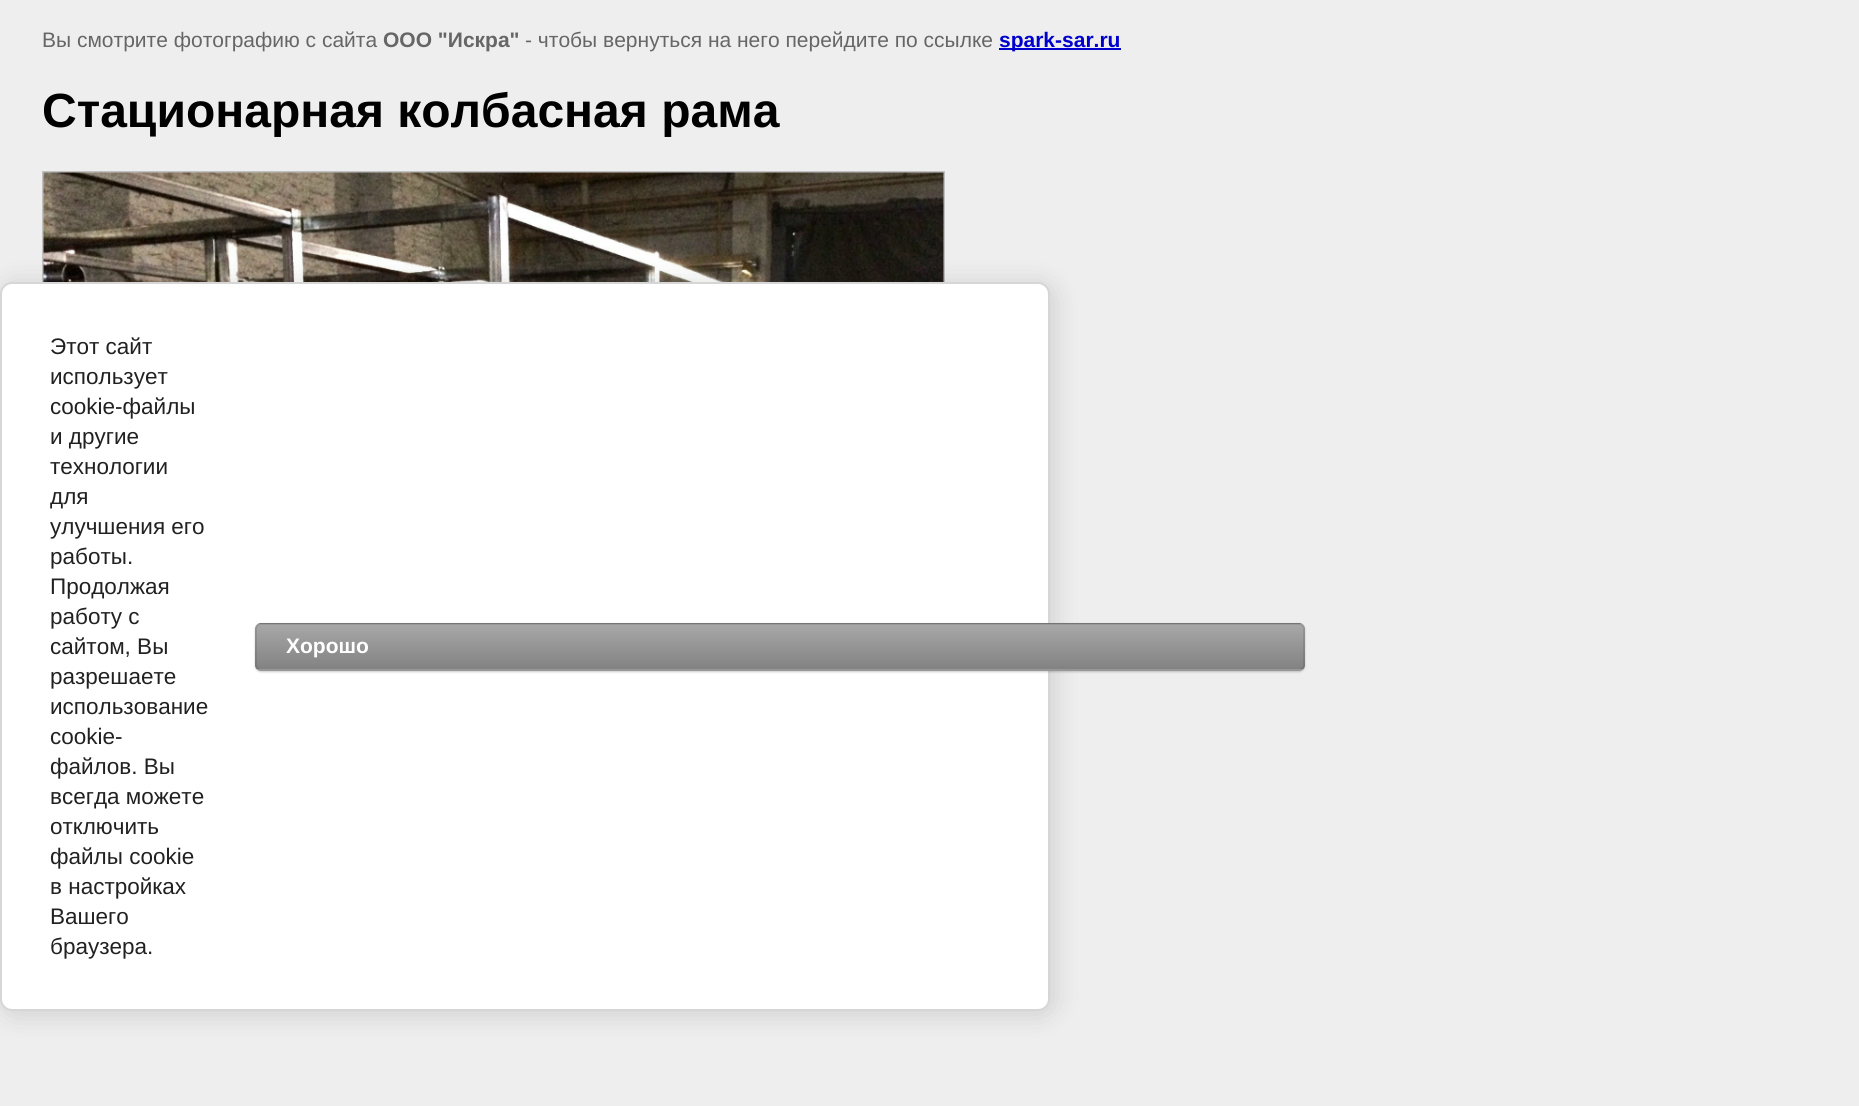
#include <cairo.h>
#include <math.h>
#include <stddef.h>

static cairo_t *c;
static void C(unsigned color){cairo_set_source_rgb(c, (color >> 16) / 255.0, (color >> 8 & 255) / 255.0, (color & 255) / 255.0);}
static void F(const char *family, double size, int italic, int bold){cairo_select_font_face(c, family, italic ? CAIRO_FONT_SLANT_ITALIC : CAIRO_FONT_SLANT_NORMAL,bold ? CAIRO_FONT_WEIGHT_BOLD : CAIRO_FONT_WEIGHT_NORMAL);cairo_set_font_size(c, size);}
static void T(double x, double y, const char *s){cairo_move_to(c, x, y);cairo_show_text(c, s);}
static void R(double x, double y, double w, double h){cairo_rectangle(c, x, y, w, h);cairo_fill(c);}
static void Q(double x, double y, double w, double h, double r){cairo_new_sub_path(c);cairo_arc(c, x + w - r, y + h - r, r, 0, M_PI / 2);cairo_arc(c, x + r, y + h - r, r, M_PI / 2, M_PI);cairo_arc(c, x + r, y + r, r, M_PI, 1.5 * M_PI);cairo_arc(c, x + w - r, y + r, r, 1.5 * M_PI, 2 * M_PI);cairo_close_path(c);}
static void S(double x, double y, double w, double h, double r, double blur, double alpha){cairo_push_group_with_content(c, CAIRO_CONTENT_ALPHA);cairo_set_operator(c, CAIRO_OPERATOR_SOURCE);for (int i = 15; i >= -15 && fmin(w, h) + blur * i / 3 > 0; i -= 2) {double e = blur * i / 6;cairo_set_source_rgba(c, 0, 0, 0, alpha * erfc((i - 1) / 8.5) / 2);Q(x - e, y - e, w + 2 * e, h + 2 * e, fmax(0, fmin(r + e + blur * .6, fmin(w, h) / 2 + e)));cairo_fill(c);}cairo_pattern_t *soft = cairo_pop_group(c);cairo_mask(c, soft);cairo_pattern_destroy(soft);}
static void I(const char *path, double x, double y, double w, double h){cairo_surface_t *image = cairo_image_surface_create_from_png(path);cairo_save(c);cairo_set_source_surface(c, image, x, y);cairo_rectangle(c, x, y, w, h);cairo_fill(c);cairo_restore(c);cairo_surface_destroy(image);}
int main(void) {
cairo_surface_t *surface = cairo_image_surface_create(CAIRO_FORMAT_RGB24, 1859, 1106);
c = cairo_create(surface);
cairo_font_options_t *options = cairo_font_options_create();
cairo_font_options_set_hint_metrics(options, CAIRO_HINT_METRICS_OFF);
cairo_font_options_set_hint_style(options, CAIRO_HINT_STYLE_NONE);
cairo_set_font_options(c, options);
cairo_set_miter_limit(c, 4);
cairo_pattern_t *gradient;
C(0xeeeeee);
cairo_paint(c);
F("Liberation Sans",21,0,0);
C(0x666666);
T(42,47,"Вы смотрите фотографию с сайта");
F("Liberation Sans",21,0,1);
T(383,47,"ООО \"Искра\"");
F("Liberation Sans",21,0,0);
T(525,47,"- чтобы вернуться на него перейдите по ссылке");
C(0x0000cc);
R(999,48,122,2);
F("Liberation Sans",21,0,1);
T(999,47,"spark-sar.ru");
F("Liberation Sans",48,0,1);
C(0x000000);
T(42,127,"Стационарная колбасная рама");
cairo_rectangle(c,43,172,901,766);
C(0xc0c0c0);
cairo_stroke(c);
I("1.png",43,172,901,110);
C(0x000000);
S(3,285,1050,729,12,13.5,.14);
C(0xffffff);
Q(1,283,1048,727,11);
cairo_fill_preserve(c);
C(0xd6d6d6);
cairo_stroke(c);
F("Liberation Sans",22.5,0,0);
C(0x212121);
T(50,354,"Этот сайт");
T(50,384,"использует");
T(50,414,"cookie-файлы");
T(50,444,"и другие");
T(50,474,"технологии");
T(50,504,"для");
T(50,534,"улучшения его");
T(50,564,"работы.");
T(50,594,"Продолжая");
T(50,624,"работу с");
T(50,654,"сайтом, Вы");
T(50,684,"разрешаете");
T(50,714,"использование");
T(50,744,"cookie-");
T(50,774,"файлов. Вы");
T(50,804,"всегда можете");
T(50,834,"отключить");
T(50,864,"файлы cookie");
T(50,894,"в настройках");
T(50,924,"Вашего");
T(50,954,"браузера.");
C(0x000000);
S(255,624,1050,48,6,1,.2);
cairo_save(c);
Q(255,623,1050,48,6);
cairo_clip(c);
gradient = cairo_pattern_create_linear(780,579,780,624);
cairo_pattern_add_color_stop_rgba(gradient,0,0.659,0.659,0.659,1);
cairo_pattern_add_color_stop_rgba(gradient,1,0.51,0.51,0.51,1);
cairo_set_source(c,gradient);
cairo_pattern_destroy(gradient);
R(255,623,1050,1);
gradient = cairo_pattern_create_linear(780,624,780,669);
cairo_pattern_add_color_stop_rgba(gradient,0,0.659,0.659,0.659,1);
cairo_pattern_add_color_stop_rgba(gradient,1,0.51,0.51,0.51,1);
cairo_set_source(c,gradient);
cairo_pattern_destroy(gradient);
R(255,624,1050,45);
gradient = cairo_pattern_create_linear(780,669,780,714);
cairo_pattern_add_color_stop_rgba(gradient,0,0.659,0.659,0.659,1);
cairo_pattern_add_color_stop_rgba(gradient,1,0.51,0.51,0.51,1);
cairo_set_source(c,gradient);
cairo_pattern_destroy(gradient);
R(255,669,1050,2);
cairo_restore(c);
Q(256,624,1048,46,5);
cairo_set_source_rgba(c,0,0,0,0.1);
cairo_stroke(c);
F("Liberation Sans",21,0,1);
C(0xffffff);
T(286,653,"Хорошо");
cairo_surface_write_to_png(surface, "o.png");
cairo_font_options_destroy(options);
cairo_destroy(c);
cairo_surface_destroy(surface);
return 0;
}
